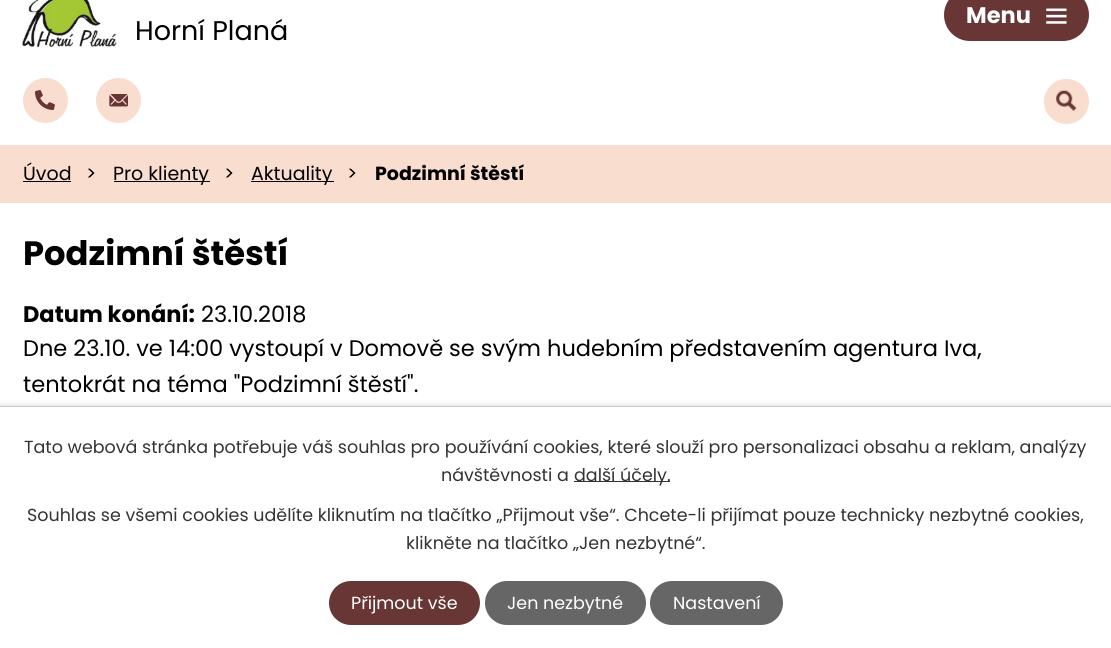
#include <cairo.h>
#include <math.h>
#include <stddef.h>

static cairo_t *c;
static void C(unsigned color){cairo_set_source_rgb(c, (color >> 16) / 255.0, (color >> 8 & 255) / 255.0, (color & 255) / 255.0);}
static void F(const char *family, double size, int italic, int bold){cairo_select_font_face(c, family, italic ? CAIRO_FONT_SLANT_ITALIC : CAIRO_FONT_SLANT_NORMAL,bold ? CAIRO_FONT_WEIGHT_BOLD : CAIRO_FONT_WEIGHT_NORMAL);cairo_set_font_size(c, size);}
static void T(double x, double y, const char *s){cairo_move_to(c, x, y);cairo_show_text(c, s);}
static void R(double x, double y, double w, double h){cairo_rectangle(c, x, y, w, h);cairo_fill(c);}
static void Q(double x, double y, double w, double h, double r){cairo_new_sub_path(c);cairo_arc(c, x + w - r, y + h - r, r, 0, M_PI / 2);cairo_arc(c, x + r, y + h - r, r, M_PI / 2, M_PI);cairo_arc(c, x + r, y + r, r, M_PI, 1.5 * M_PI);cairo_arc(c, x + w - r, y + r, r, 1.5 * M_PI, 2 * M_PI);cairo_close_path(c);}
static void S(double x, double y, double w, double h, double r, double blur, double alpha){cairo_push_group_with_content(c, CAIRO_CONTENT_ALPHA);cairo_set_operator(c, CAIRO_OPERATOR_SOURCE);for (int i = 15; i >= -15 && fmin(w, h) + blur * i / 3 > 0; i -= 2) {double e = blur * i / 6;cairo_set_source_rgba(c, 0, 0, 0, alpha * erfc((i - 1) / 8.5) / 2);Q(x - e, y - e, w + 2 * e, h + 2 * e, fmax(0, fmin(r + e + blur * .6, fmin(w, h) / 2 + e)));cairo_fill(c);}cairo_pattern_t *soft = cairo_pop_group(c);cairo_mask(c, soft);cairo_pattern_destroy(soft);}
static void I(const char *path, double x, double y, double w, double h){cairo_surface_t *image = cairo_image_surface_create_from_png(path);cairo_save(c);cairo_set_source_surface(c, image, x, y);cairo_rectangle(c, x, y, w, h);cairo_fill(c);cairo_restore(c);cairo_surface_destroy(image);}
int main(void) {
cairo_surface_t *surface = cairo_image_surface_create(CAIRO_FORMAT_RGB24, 1111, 648);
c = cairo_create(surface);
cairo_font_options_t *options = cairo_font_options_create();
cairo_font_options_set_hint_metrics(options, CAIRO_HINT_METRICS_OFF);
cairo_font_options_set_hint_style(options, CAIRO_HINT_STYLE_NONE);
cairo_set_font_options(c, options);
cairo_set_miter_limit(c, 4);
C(0xffffff);
cairo_paint(c);
C(0x693636);
Q(944,-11,145,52,26);
cairo_fill(c);
F("Poppins",22.5,0,1);
C(0xffffff);
T(966,23,"Menu");
I("1.png",1046,8,21,16);
I("2.png",22,0,95,47);
F("Poppins",27,0,0);
C(0x000000);
T(135,40,"Horní Planá");
C(0xf9ddcf);
cairo_new_path(c);
cairo_arc(c,45.5,100.5,22.5,0,2 * M_PI);
cairo_fill(c);
I("3.png",35,90,20,20);
cairo_arc(c,118.5,100.5,22.5,0,2 * M_PI);
cairo_fill(c);
I("4.png",109,94,19,13);
cairo_arc(c,1066.5,101.5,22.5,0,2 * M_PI);
cairo_fill(c);
I("5.png",1056,90,21,21);
R(0,145,1111,58);
F("Poppins",19,0,0);
C(0x000000);
T(23,180,"Úvod");
R(23,181,48,1);
T(86,180,">");
R(114,181,96,1);
T(113,180,"Pro klienty");
T(224,180,">");
R(251,181,83,1);
T(251,180,"Aktuality");
T(347,180,">");
F("Poppins",19,0,1);
T(375,180,"Podzimní štěstí");
F("Poppins",33.75,0,1);
T(23,265,"Podzimní štěstí");
F("Poppins",22.5,0,1);
T(23,322,"Datum konání:");
F("Poppins",22.5,0,0);
T(201,322,"23.10.2018");
T(23,356,"Dne 23.10. ve 14:00 vystoupí v Domově se svým hudebním představením agentura Iva,");
T(23,392,"tentokrát na téma \"Podzimní štěstí\".");
C(0x000000);
S(0,406,1111,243,0,3,.2);
C(0xffffff);
R(0,407,1111,241);
C(0xcccccc);
R(0,406,1111,1);
F("Poppins",17.5,0,0);
C(0x333333);
T(24,453,"Tato webová stránka potřebuje váš souhlas pro používání cookies, které slouží pro personalizaci obsahu a reklam, analýzy");
T(441,481,"návštěvnosti a");
R(574,481,96,1);
T(574,481,"další účely.");
T(27,521,"Souhlas se všemi cookies udělíte kliknutím na tlačítko „Přijmout vše“. Chcete-li přijímat pouze technicky nezbytné cookies,");
T(406,549,"klikněte na tlačítko „Jen nezbytné“.");
C(0x693636);
Q(329,581,151,44,22);
cairo_fill(c);
C(0xffffff);
T(351,609,"Přijmout vše");
C(0x666666);
Q(485,581,161,44,22);
cairo_fill(c);
C(0xffffff);
T(507,609,"Jen nezbytné");
C(0x666666);
Q(650,581,133,44,22);
cairo_fill(c);
C(0xffffff);
T(673,609,"Nastavení");
cairo_surface_write_to_png(surface, "o.png");
cairo_font_options_destroy(options);
cairo_destroy(c);
cairo_surface_destroy(surface);
return 0;
}
